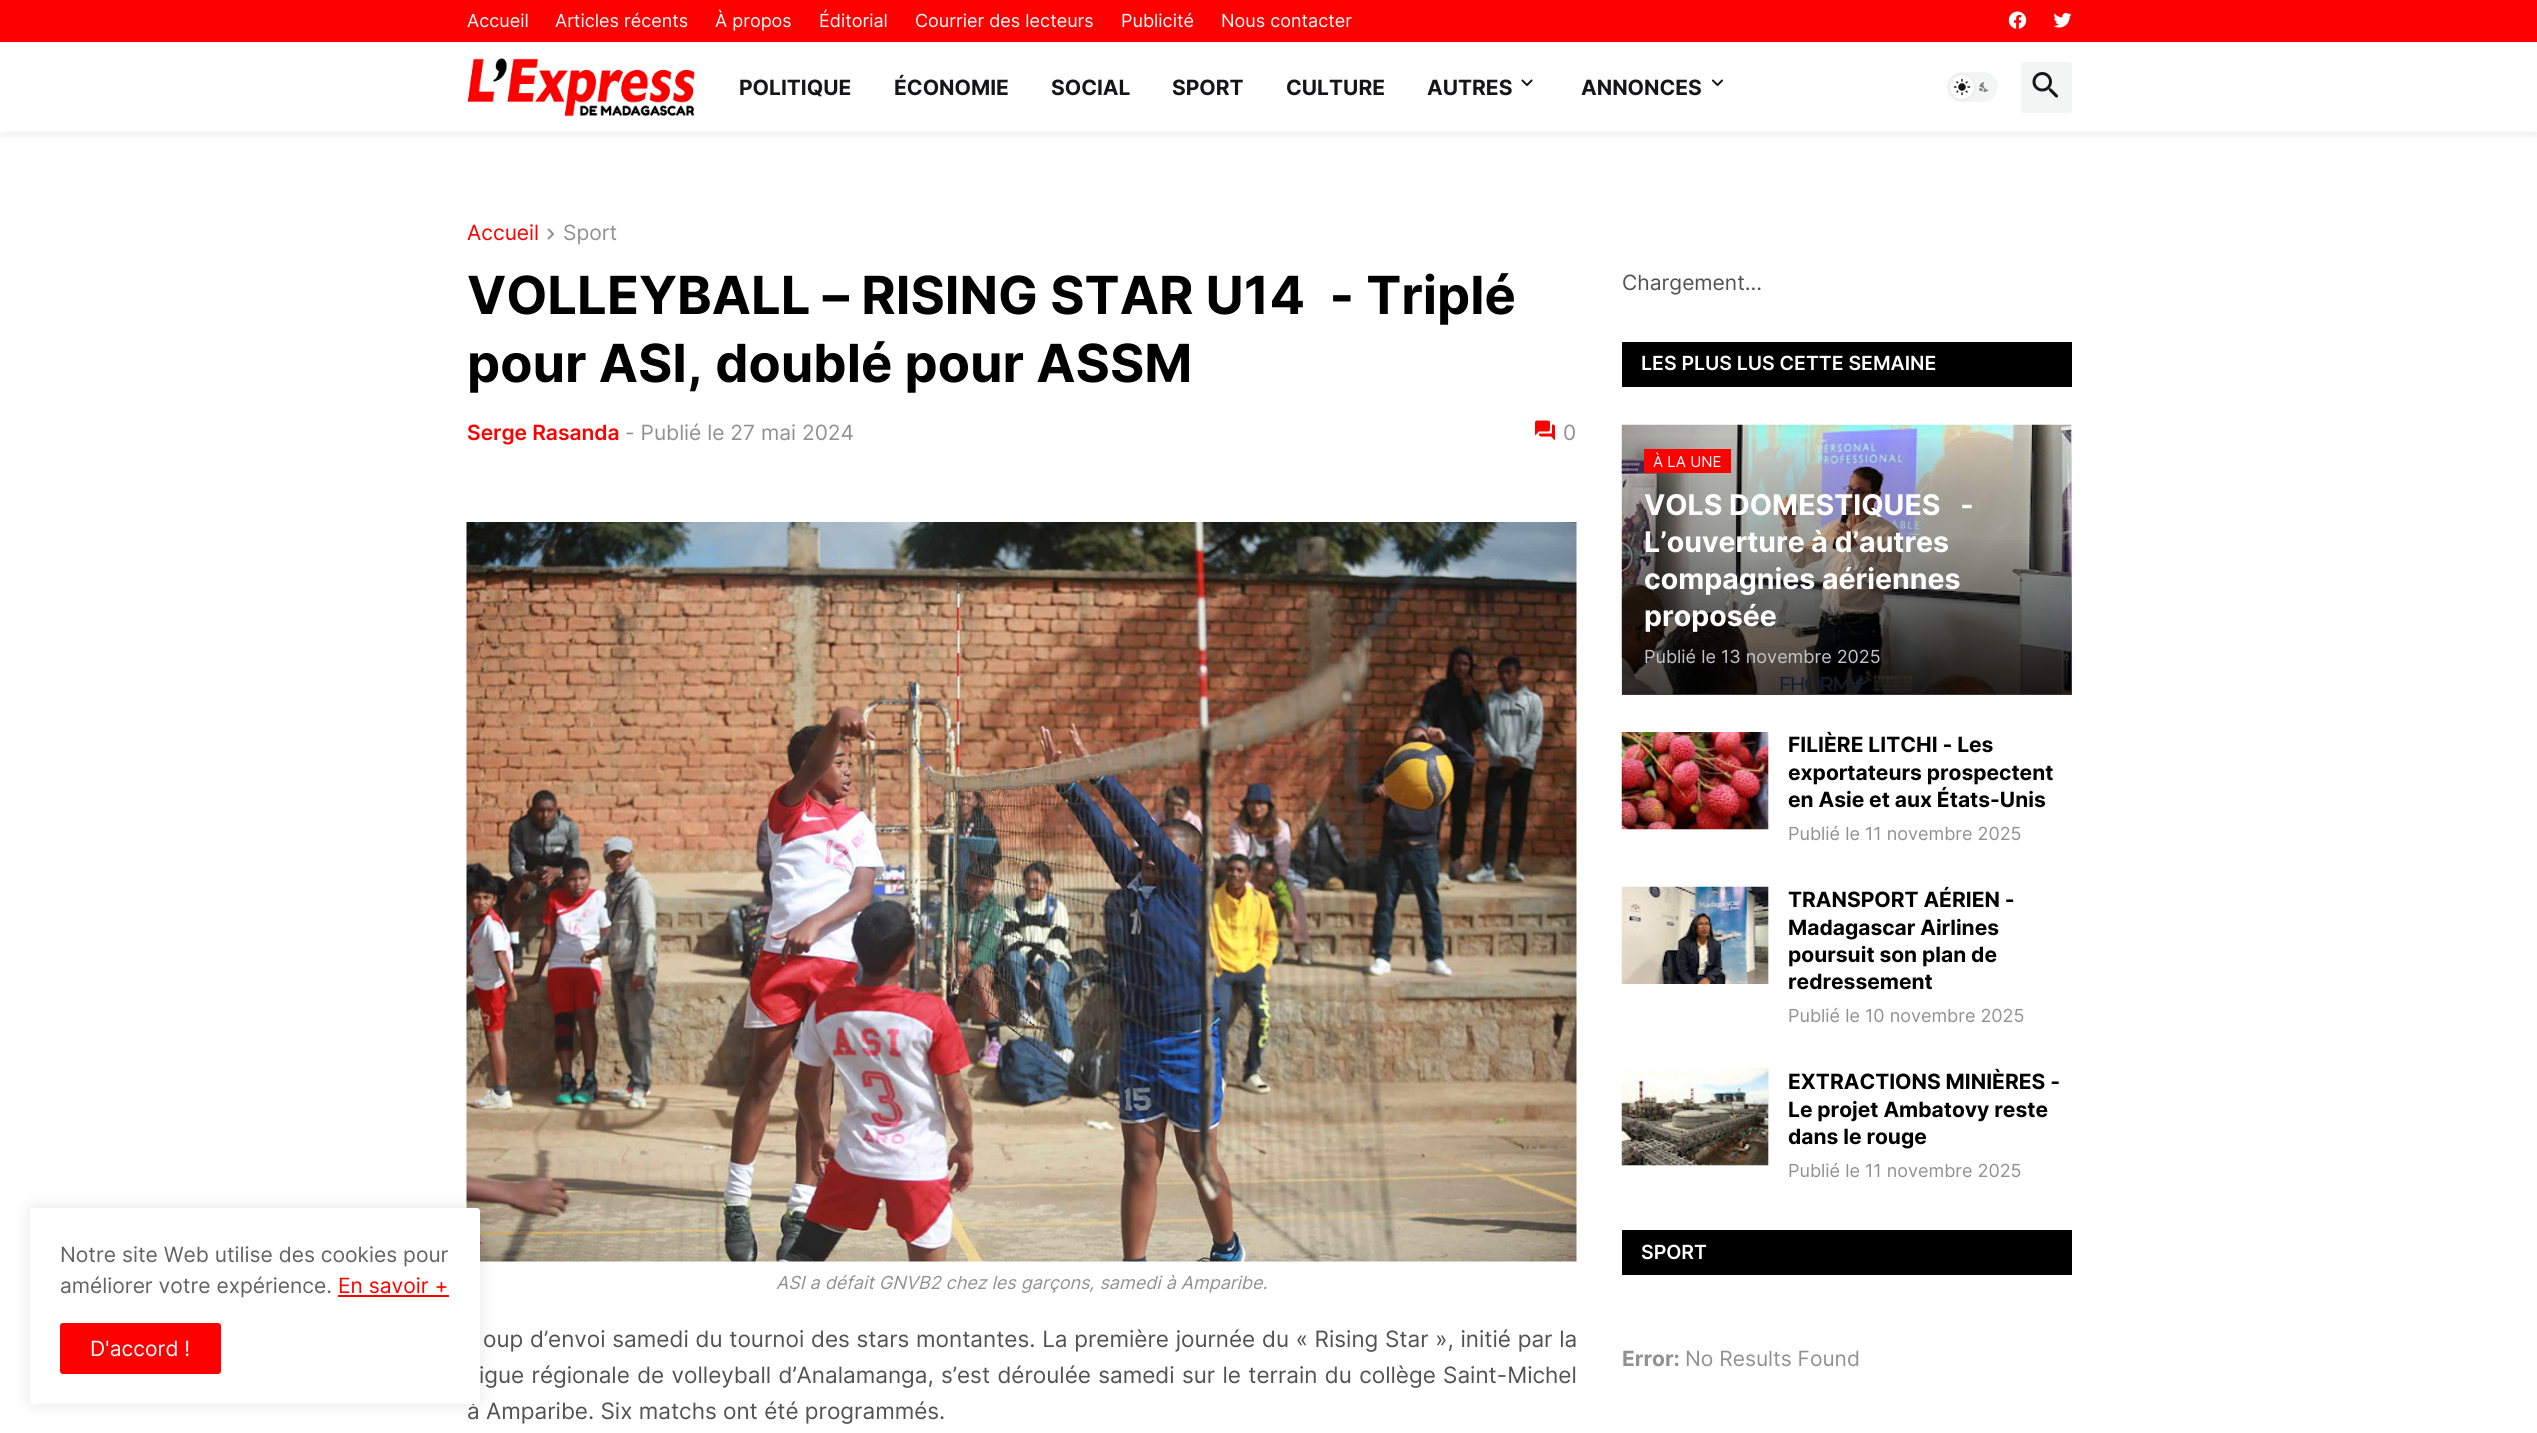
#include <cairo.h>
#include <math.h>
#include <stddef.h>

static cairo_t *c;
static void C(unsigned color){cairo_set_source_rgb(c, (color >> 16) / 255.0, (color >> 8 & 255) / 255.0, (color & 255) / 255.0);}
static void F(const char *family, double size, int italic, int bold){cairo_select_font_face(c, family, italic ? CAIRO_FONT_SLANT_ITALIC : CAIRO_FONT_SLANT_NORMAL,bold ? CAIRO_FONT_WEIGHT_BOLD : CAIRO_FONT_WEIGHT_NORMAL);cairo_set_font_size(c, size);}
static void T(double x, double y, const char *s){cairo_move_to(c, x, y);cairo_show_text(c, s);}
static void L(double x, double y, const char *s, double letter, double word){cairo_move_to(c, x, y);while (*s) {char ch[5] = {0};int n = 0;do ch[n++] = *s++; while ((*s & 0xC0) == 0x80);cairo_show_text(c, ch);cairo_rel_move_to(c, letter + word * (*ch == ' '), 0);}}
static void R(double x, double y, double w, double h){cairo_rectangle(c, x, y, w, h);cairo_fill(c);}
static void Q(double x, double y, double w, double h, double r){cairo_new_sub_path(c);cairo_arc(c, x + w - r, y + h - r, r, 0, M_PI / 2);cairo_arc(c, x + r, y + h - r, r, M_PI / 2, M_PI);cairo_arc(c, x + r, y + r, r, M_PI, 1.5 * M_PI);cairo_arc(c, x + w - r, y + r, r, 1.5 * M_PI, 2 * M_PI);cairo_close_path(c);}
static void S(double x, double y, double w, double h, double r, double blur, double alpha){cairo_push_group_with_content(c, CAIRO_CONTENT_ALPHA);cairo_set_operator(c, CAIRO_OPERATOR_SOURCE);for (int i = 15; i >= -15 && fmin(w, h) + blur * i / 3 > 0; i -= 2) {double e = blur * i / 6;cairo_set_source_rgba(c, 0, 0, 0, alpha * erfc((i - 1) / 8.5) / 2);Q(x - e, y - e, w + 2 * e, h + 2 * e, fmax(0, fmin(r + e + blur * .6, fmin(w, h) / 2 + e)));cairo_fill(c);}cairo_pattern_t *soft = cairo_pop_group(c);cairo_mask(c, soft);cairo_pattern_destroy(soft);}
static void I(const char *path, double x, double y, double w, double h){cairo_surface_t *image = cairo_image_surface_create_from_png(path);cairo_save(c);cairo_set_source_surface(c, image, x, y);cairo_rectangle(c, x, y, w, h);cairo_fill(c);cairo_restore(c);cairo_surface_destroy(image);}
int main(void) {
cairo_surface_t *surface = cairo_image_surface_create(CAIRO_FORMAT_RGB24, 2537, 1433);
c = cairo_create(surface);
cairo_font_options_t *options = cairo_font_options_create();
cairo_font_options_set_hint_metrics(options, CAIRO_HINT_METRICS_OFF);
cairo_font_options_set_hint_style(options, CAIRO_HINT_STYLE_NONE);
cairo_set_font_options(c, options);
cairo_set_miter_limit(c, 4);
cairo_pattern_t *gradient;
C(0xffffff);
cairo_paint(c);
cairo_save(c);
cairo_rectangle(c,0,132,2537,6);
cairo_clip(c);
C(0x000000);
S(0,42,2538,90,0,7.5,.1);
cairo_restore(c);
C(0xfd0000);
R(0,0,2537,42);
F("Inter",18,0,0);
C(0xffffff);
T(467,27,"Accueil");
T(555,27,"Articles récents");
T(715,27,"À propos");
T(819,27,"Éditorial");
T(915,27,"Courrier des lecteurs");
T(1121,27,"Publicité");
T(1221,27,"Nous contacter");
I("1.png",2008,11,19,18);
I("2.png",2053,13,19,15);
I("3.png",467,58,228,59);
F("Inter",21,0,1);
C(0x161618);
T(739,95,"POLITIQUE");
T(894,95,"ÉCONOMIE");
T(1051,95,"SOCIAL");
T(1172,95,"SPORT");
T(1286,95,"CULTURE");
T(1427,95,"AUTRES");
I("4.png",1521,79,12,7);
T(1581,95,"ANNONCES");
I("5.png",1711,79,13,8);
C(0xf3f5f5);
Q(1947,72,51,30,15);
cairo_fill(c);
I("7.png",1979,82,10,10);
C(0x000000);
S(1950,75,24,24,12,1.5,.1);
C(0xffffff);
cairo_arc(c,1962,87,12,0,2 * M_PI);
cairo_fill(c);
I("6.png",1953,78,18,18);
C(0xf3f5f5);
Q(2021,62,51,51,3);
cairo_fill(c);
I("8.png",2032,72,26,26);
I("11.png",466,522,1111,740);
C(0x000000);
S(30,1208,450,196,3,7.5,.1);
F("Inter",22.5,0,0);
C(0x525252);
T(467,1419,"à Amparibe. Six matchs ont été programmés.");
C(0xffffff);
Q(30,1208,450,196,3);
cairo_fill(c);
F("Inter",21,0,0);
C(0x626262);
T(60,1262,"Notre site Web utilise des cookies pour");
T(60,1293,"améliorer votre expérience.");
C(0xfd0000);
T(338,1293,"En savoir +");
R(338,1295,111,2);
Q(60,1323,161,51,3);
cairo_fill(c);
C(0xffffff);
T(90,1356,"D'accord !");
C(0xfd0000);
T(467,240,"Accueil");
I("9.png",547,228,7,12);
C(0x919191);
T(563,240,"Sport");
F("Inter",52.5,0,1);
C(0x000000);
T(467,314,"VOLLEYBALL – RISING STAR U14  - Triplé");
T(467,382,"pour ASI, doublé pour ASSM");
F("Inter SemiBold",21,0,0);
C(0xfd0000);
T(467,440,"Serge Rasanda");
F("Inter",21,0,0);
C(0x919191);
T(625,440,"- Publié le 27 mai 2024");
I("10.png",1535,420,20,21);
T(1563,440,"0");
F("Inter",18,1,0);
T(776,1289,"ASI a défait GNVB2 chez les garçons, samedi à Amparibe.");
F("Inter",22.5,0,0);
C(0x525252);
L(483,1347,"oup d’envoi samedi du tournoi des stars montantes. La première journée du « Rising Star », initié par la",0,.4);
L(479,1383,"igue régionale de volleyball d’Analamanga, s’est déroulée samedi sur le terrain du collège Saint-Michel",0,1);
F("Inter",21,0,0);
T(1622,290,"Chargement...");
C(0x000000);
R(1622,342,450,45);
F("Inter SemiBold",19.5,0,0);
C(0xffffff);
T(1641,370,"LES PLUS LUS CETTE SEMAINE");
C(0xf3f5f6);
R(1622,425,450,270);
I("12.png",1621,424,451,271);
gradient = cairo_pattern_create_linear(1847,479,1847,695);
cairo_pattern_add_color_stop_rgba(gradient,.25,0,0,0,0);
cairo_pattern_add_color_stop_rgba(gradient,1,0,0,0,.5);
cairo_set_source(c,gradient);
cairo_pattern_destroy(gradient);
R(1622,540,450,155);
gradient = cairo_pattern_create_linear(1847,426,1847,695);
cairo_pattern_add_color_stop_rgba(gradient,0,0,0,0,0);
cairo_pattern_add_color_stop_rgba(gradient,1,0,0,0,.5);
cairo_set_source(c,gradient);
cairo_pattern_destroy(gradient);
R(1622,438,450,257);
C(0xfd0000);
R(1644,449,87,24);
F("Inter",15,0,0);
C(0xffffff);
T(1653,467,"À LA UNE");
F("Inter",28.5,0,1);
T(1644,515,"VOLS DOMESTIQUES   -");
T(1644,552,"L’ouverture à d’autres");
T(1644,589,"compagnies aériennes");
T(1644,626,"proposée");
F("Inter",18,0,0);
C(0xc5c5ca);
T(1644,663,"Publié le 13 novembre 2025");
C(0xf3f5f5);
R(1622,732,147,98);
I("13.png",1621,732,148,98);
F("Inter",21,0,1);
C(0x000000);
T(1788,752,"FILIÈRE LITCHI - Les");
T(1788,780,"exportateurs prospectent");
T(1788,807,"en Asie et aux États-Unis");
F("Inter",18,0,0);
C(0x919191);
T(1788,840,"Publié le 11 novembre 2025");
C(0xf3f5f5);
R(1768,887,1,97);
I("14.png",1621,886,148,98);
F("Inter",21,0,1);
C(0x000000);
T(1788,907,"TRANSPORT AÉRIEN -");
T(1788,935,"Madagascar Airlines");
T(1788,962,"poursuit son plan de");
T(1788,989,"redressement");
F("Inter",18,0,0);
C(0x919191);
T(1788,1022,"Publié le 10 novembre 2025");
C(0xf3f5f5);
R(1622,1068,147,98);
I("15.png",1621,1068,148,98);
F("Inter",21,0,1);
C(0x000000);
T(1788,1089,"EXTRACTIONS MINIÈRES -");
T(1788,1117,"Le projet Ambatovy reste");
T(1788,1144,"dans le rouge");
F("Inter",18,0,0);
C(0x919191);
T(1788,1177,"Publié le 11 novembre 2025");
C(0x000000);
R(1622,1230,450,45);
F("Inter SemiBold",19.5,0,0);
C(0xffffff);
T(1641,1259,"SPORT");
F("Inter",21,0,1);
C(0x919191);
T(1622,1366,"Error:");
F("Inter",21,0,0);
T(1685,1366,"No Results Found");
cairo_surface_write_to_png(surface, "o.png");
cairo_font_options_destroy(options);
cairo_destroy(c);
cairo_surface_destroy(surface);
return 0;
}
